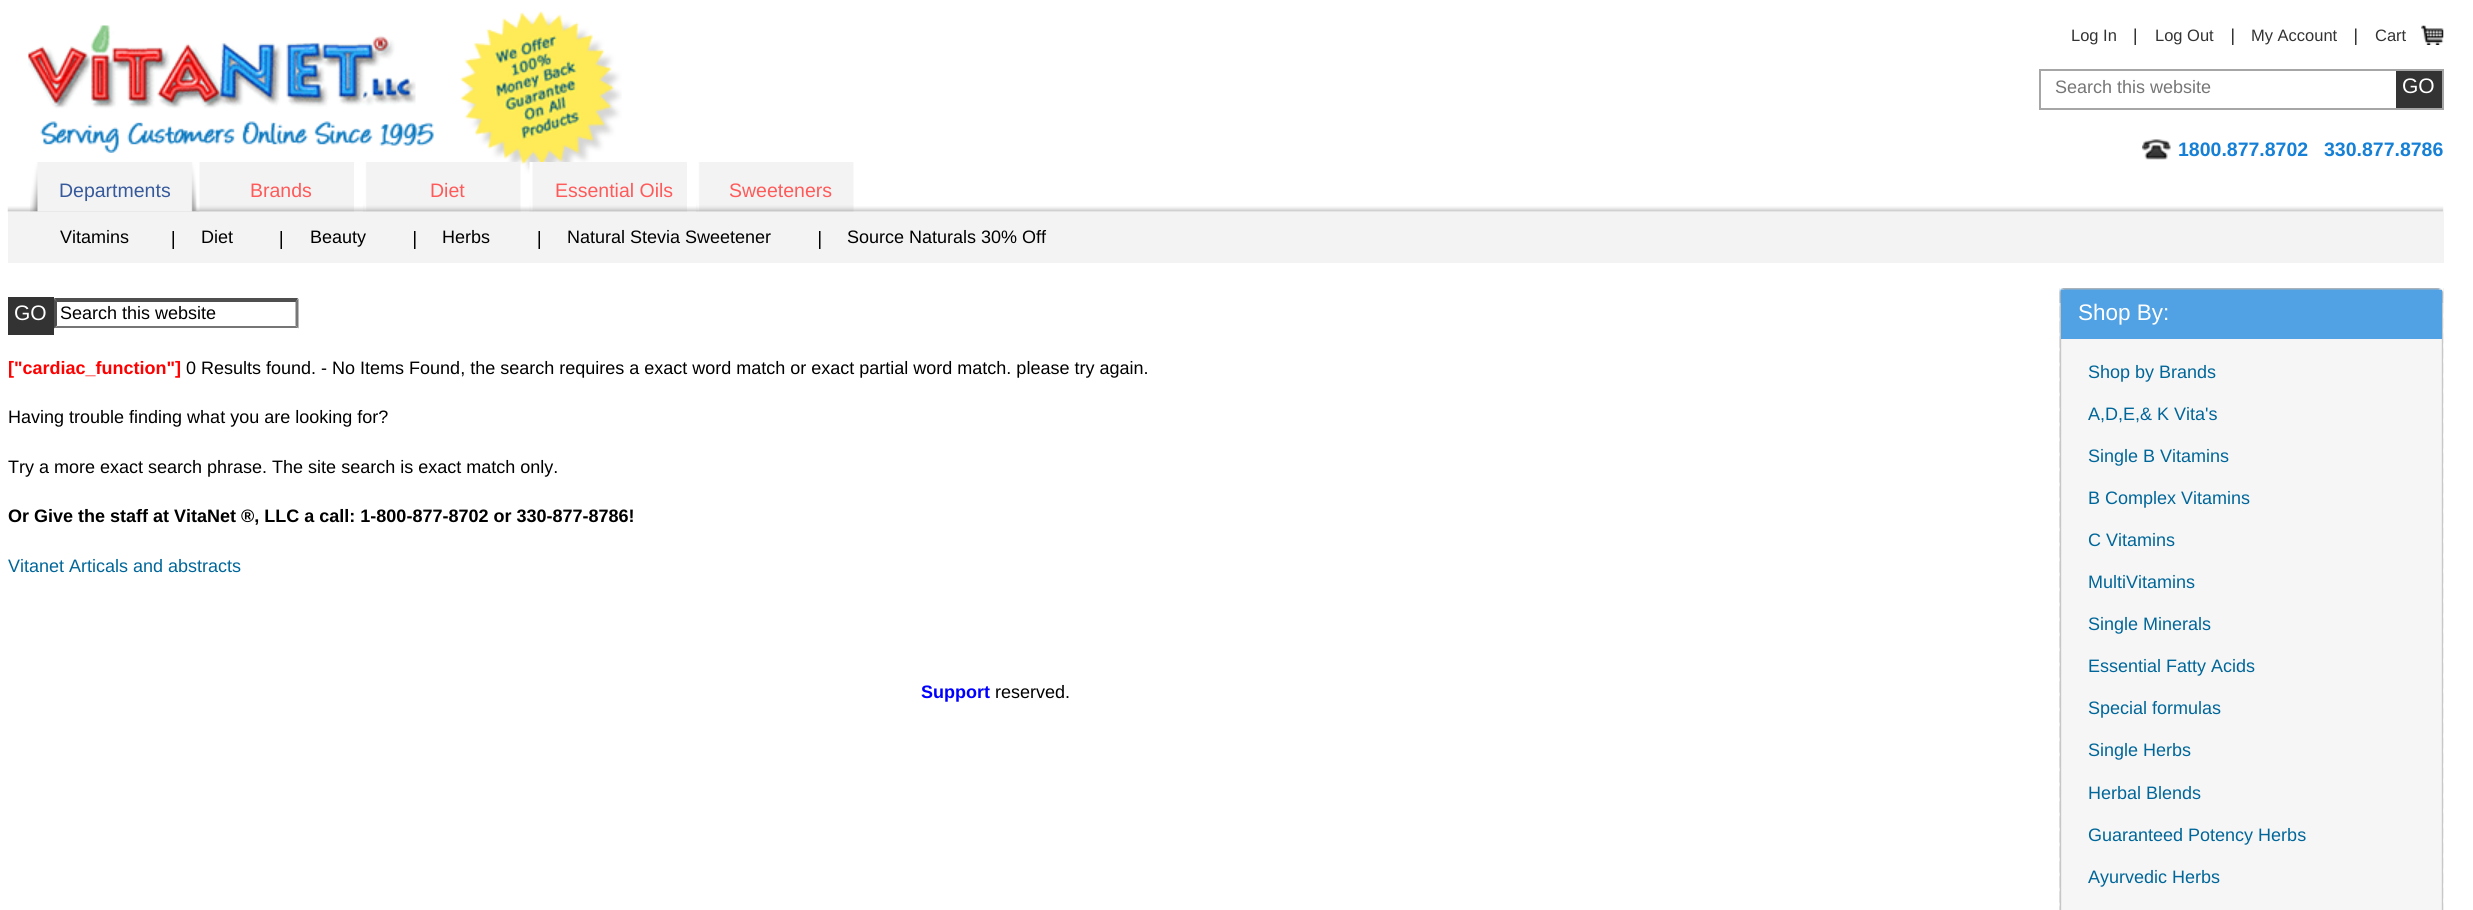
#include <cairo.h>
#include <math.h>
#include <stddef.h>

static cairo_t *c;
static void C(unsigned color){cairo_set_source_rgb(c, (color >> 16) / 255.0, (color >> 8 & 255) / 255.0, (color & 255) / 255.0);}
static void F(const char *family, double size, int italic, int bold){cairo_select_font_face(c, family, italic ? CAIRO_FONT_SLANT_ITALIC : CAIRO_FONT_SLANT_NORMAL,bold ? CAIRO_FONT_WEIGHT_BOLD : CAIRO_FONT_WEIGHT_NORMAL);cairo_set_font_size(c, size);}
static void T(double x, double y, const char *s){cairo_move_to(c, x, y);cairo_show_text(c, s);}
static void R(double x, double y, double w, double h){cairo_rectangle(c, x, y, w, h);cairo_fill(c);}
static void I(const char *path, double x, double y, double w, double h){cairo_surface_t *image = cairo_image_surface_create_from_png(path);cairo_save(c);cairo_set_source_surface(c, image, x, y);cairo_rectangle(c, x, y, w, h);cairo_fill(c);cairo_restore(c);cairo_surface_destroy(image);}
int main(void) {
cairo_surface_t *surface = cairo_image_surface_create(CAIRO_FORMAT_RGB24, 2473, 910);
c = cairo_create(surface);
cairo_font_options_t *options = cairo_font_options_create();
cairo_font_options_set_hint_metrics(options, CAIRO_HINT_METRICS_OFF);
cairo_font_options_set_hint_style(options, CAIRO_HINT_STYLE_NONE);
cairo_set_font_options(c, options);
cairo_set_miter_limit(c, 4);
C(0xffffff);
cairo_paint(c);
I("1.png",28,25,406,128);
I("2.png",460,11,162,163);
F("Liberation Sans",16.5,0,0);
C(0x333333);
T(2071,41,"Log In");
I("3.png",2134,28,2,17);
T(2155,41,"Log Out");
I("4.png",2232,28,2,17);
T(2251,41,"My Account");
I("4.png",2355,28,2,17);
I("5.png",2421,25,23,20);
T(2375,41,"Cart");
cairo_rectangle(c,2040,70,403,39);
C(0xa6a6a6);
cairo_stroke(c);
F("Liberation Sans",18,0,0);
C(0x767676);
T(2055,93,"Search this website");
C(0x333333);
R(2396,71,46,37);
F("Liberation Sans",21,0,0);
C(0xffffff);
T(2402,93,"GO");
I("6.png",2142,139,29,21);
F("Liberation Sans",19.5,0,1);
C(0x1580d5);
T(2178,156,"1800.877.8702");
T(2324,156,"330.877.8786");
I("7.png",7,206,2437,6);
I("8.png",30,162,170,50);
F("Liberation Sans",19.5,0,0);
C(0x36599c);
T(59,197,"Departments");
I("9.png",196,162,158,50);
C(0xff5a5a);
T(250,197,"Brands");
I("10.png",363,162,158,50);
T(430,197,"Diet");
I("11.png",529,162,158,50);
T(555,197,"Essential Oils");
I("12.png",696,162,158,50);
T(729,197,"Sweeteners");
C(0xf3f3f3);
R(8,212,2436,51);
F("Liberation Sans",18,0,0);
C(0x000000);
T(60,243,"Vitamins");
I("13.png",172,231,2,18);
T(201,243,"Diet");
I("13.png",280,231,2,18);
T(310,243,"Beauty");
I("14.png",414,231,2,18);
T(442,243,"Herbs");
I("13.png",538,231,2,18);
T(567,243,"Natural Stevia Sweetener");
I("14.png",819,231,2,18);
T(847,243,"Source Naturals 30% Off");
C(0x333333);
R(8,297,46,38);
F("Liberation Sans",21,0,0);
C(0xffffff);
T(14,320,"GO");
C(0x4f4f4f);
cairo_new_path(c);
cairo_move_to(c,54,298);
cairo_line_to(c,298,298);
cairo_line_to(c,296,302);
cairo_line_to(c,57,302);
cairo_close_path(c);
cairo_fill(c);
C(0x767676);
cairo_new_path(c);
cairo_move_to(c,298.5,298.5);
cairo_line_to(c,298.5,328.5);
cairo_line_to(c,295.5,325.5);
cairo_line_to(c,295.5,301.5);
cairo_close_path(c);
cairo_fill(c);
cairo_new_path(c);
cairo_move_to(c,298,328);
cairo_line_to(c,54,328);
cairo_line_to(c,57,326);
cairo_line_to(c,296,326);
cairo_close_path(c);
cairo_fill(c);
C(0x4f4f4f);
cairo_new_path(c);
cairo_move_to(c,54,328.5);
cairo_line_to(c,54,298.5);
cairo_line_to(c,57,301.5);
cairo_line_to(c,57,325.5);
cairo_close_path(c);
cairo_fill(c);
F("Liberation Sans",18,0,0);
C(0x000000);
T(60,319,"Search this website");
F("Liberation Sans",18,0,1);
C(0xff0000);
T(8,374,"[\"cardiac_function\"]");
F("Liberation Sans",18,0,0);
C(0x000000);
T(186,374,"0 Results found. - No Items Found, the search requires a exact word match or exact partial word match. please try again.");
T(8,423,"Having trouble finding what you are looking for?");
T(8,473,"Try a more exact search phrase. The site search is exact match only.");
F("Liberation Sans",18,0,1);
T(8,522,"Or Give the staff at VitaNet ®, LLC a call: 1-800-877-8702 or 330-877-8786!");
F("Liberation Sans",18,0,0);
C(0x006699);
T(8,572,"Vitanet Articals and abstracts");
F("Liberation Sans",18,0,1);
C(0x0000ff);
T(921,698,"Support");
F("Liberation Sans",18,0,0);
C(0x000000);
T(995,698,"reserved.");
I("15.png",2059,288,385,622);
I("16.png",2059,288,385,15);
C(0x50a2e4);
R(2061,290,381,49);
F("Liberation Sans",22.5,0,0);
C(0xffffff);
T(2078,320,"Shop By:");
F("Liberation Sans",18,0,0);
C(0x006699);
T(2088,378,"Shop by Brands");
T(2088,420,"A,D,E,& K Vita's");
T(2088,462,"Single B Vitamins");
T(2088,504,"B Complex Vitamins");
T(2088,546,"C Vitamins");
T(2088,588,"MultiVitamins");
T(2088,630,"Single Minerals");
T(2088,672,"Essential Fatty Acids");
T(2088,714,"Special formulas");
T(2088,756,"Single Herbs");
T(2088,799,"Herbal Blends");
T(2088,841,"Guaranteed Potency Herbs");
T(2088,883,"Ayurvedic Herbs");
cairo_surface_write_to_png(surface, "o.png");
cairo_font_options_destroy(options);
cairo_destroy(c);
cairo_surface_destroy(surface);
return 0;
}
